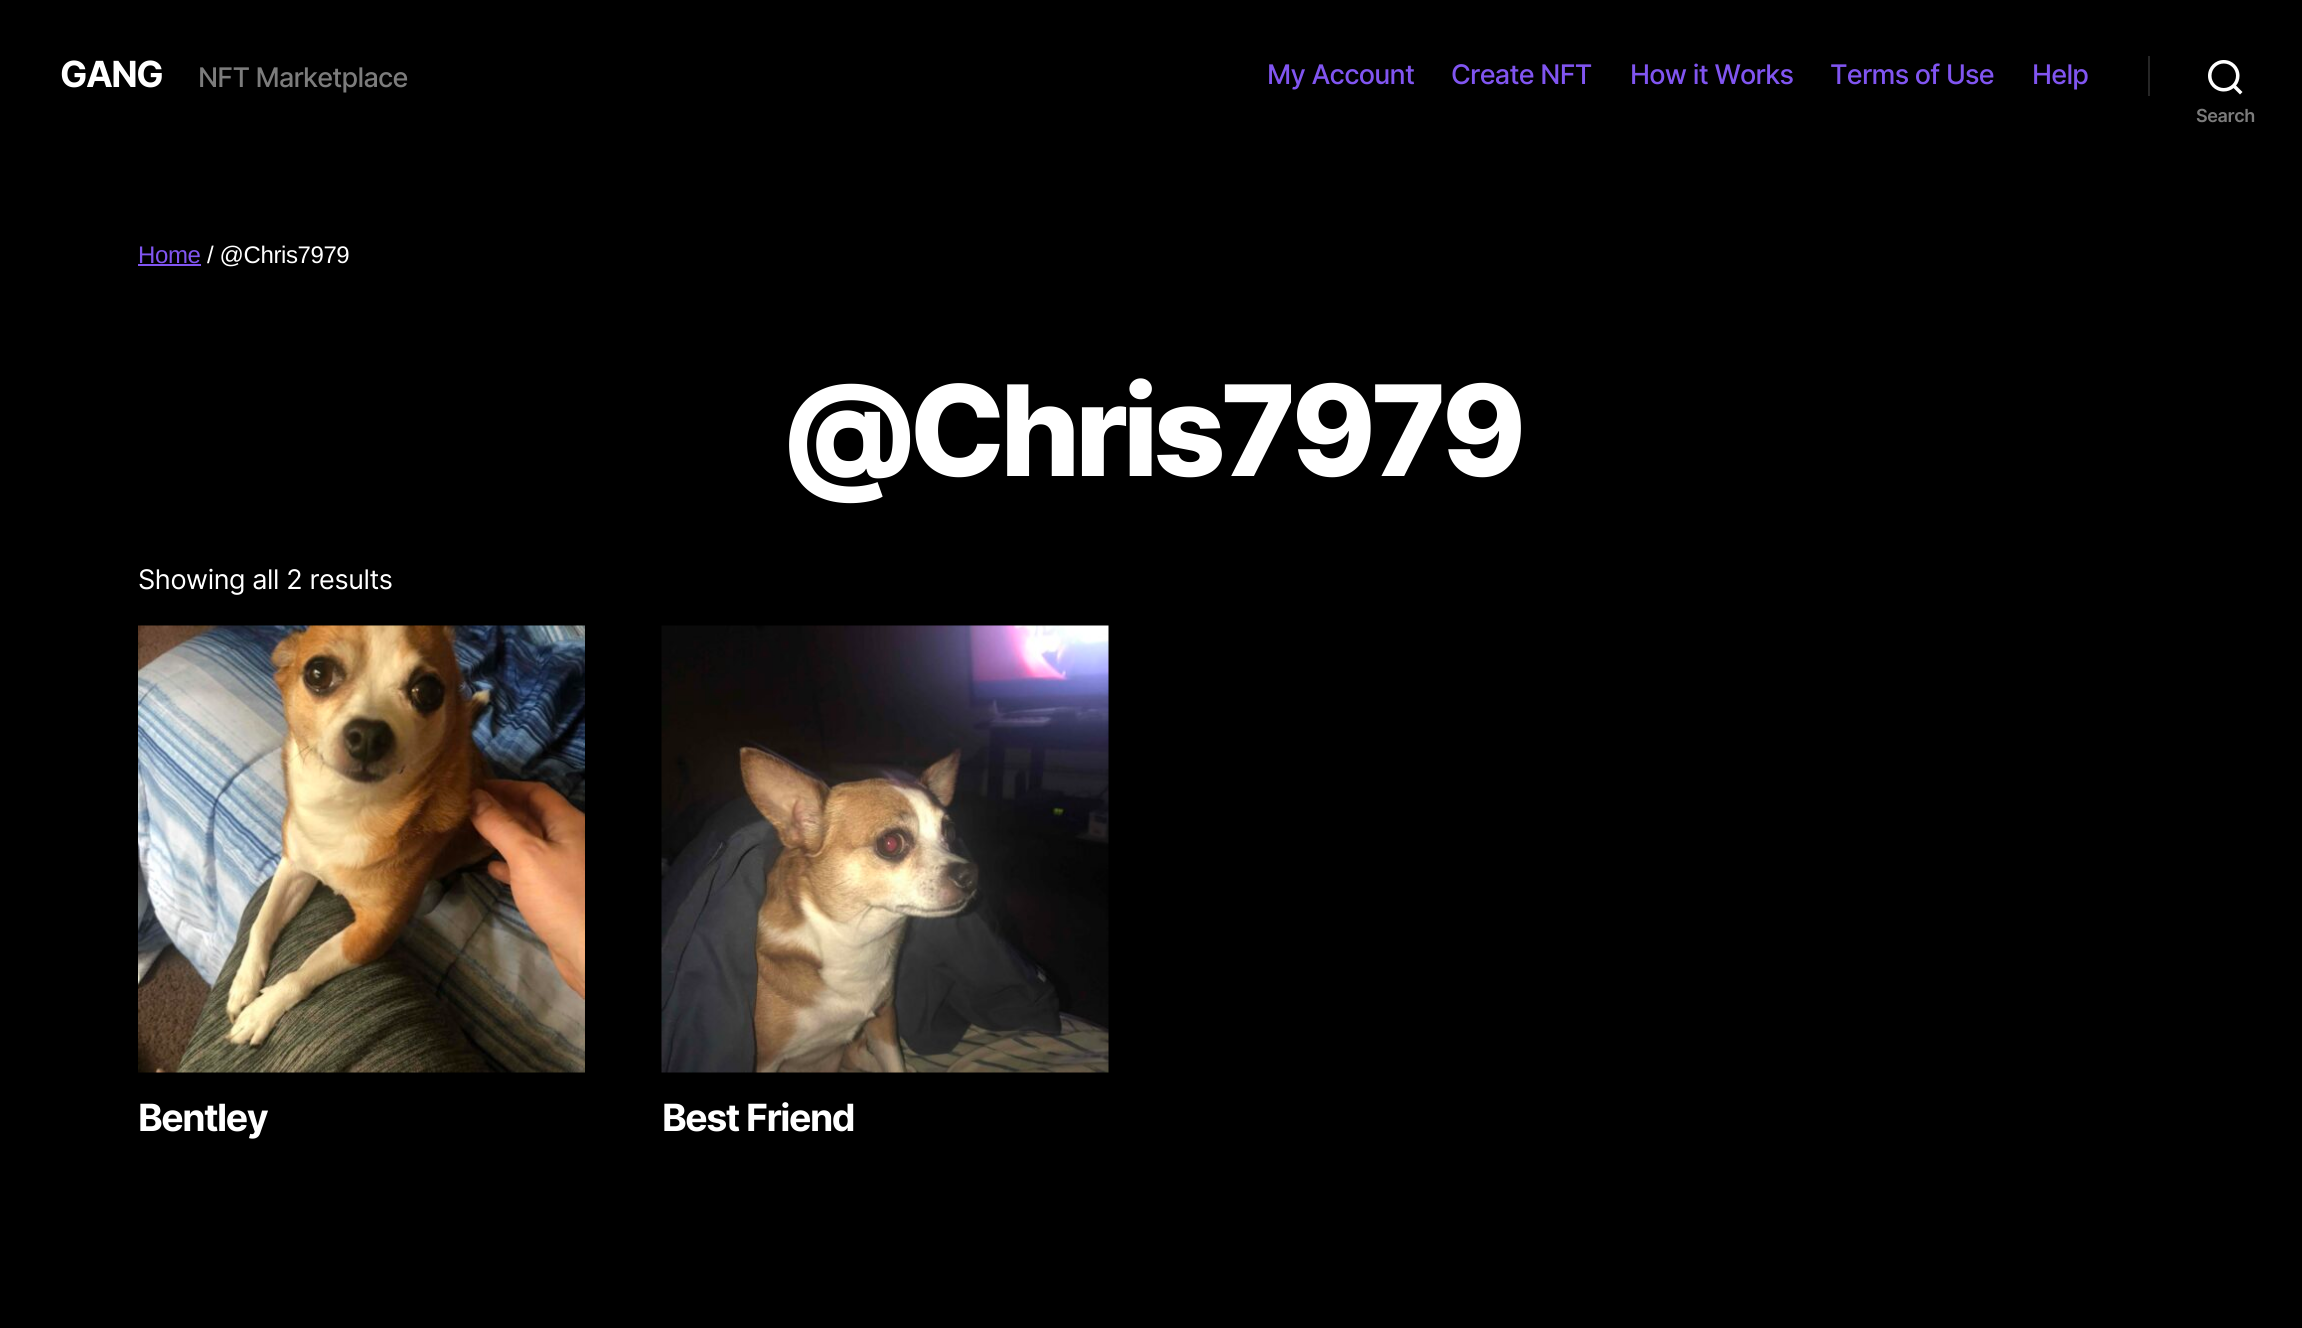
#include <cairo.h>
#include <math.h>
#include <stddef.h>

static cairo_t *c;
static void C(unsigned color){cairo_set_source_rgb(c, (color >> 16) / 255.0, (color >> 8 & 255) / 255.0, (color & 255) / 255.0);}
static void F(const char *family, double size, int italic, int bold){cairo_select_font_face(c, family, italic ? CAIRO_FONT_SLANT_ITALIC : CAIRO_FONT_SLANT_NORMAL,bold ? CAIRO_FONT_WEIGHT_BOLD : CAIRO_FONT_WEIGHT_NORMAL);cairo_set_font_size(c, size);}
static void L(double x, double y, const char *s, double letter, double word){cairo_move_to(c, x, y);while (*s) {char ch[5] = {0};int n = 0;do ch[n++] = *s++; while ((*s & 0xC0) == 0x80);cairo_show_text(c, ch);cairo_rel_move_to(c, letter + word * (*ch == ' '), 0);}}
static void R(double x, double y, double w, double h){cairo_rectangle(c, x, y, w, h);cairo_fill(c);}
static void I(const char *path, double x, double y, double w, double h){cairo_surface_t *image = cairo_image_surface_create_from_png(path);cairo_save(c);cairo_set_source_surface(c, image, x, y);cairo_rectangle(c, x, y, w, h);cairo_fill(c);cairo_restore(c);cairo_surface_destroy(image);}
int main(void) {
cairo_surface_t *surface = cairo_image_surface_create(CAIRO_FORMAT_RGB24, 2302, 1328);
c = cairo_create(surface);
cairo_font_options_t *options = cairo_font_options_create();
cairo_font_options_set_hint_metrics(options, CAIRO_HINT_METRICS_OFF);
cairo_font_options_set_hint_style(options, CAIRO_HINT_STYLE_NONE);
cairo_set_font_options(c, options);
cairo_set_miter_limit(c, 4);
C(0x000000);
cairo_paint(c);
F("Inter",36,0,1);
C(0xffffff);
L(60,87,"GANG",-1.5,0);
F("Inter Medium",27,0,0);
C(0x7c7c7c);
L(198,87,"NFT Marketplace",-.8,0);
C(0x8155f1);
L(1267,84,"My Account",-.75,0);
L(1451,84,"Create NFT",-.75,0);
L(1630,84,"How it Works",-.75,0);
L(1830,84,"Terms of Use",-.75,0);
L(2032,84,"Help",-.75,0);
C(0x262626);
R(2148,56,2,40);
I("1.png",2208,60,35,35);
F("Inter SemiBold",18,0,0);
C(0x7c7c7c);
L(2196,122,"Search",-.4,0);
F("Liberation Sans",24,0,0);
C(0x8155f1);
L(138,263,"Home",-.4,0);
R(138,264,63,2);
C(0xffffff);
L(207,263,"/ @Chris7979",-.4,0);
F("Inter ExtraBold",126,0,0);
L(781,476,"@Chris7979",-5.25,0);
F("Inter",27,0,0);
L(138,589,"Showing all 2 results",-.4,0);
I("2.png",138,625,447,448);
F("Inter",37.5,0,1);
L(138,1131,"Bentley",-1.5,0);
I("3.png",661,625,448,448);
L(662,1131,"Best Friend",-1.5,0);
cairo_surface_write_to_png(surface, "o.png");
cairo_font_options_destroy(options);
cairo_destroy(c);
cairo_surface_destroy(surface);
return 0;
}
